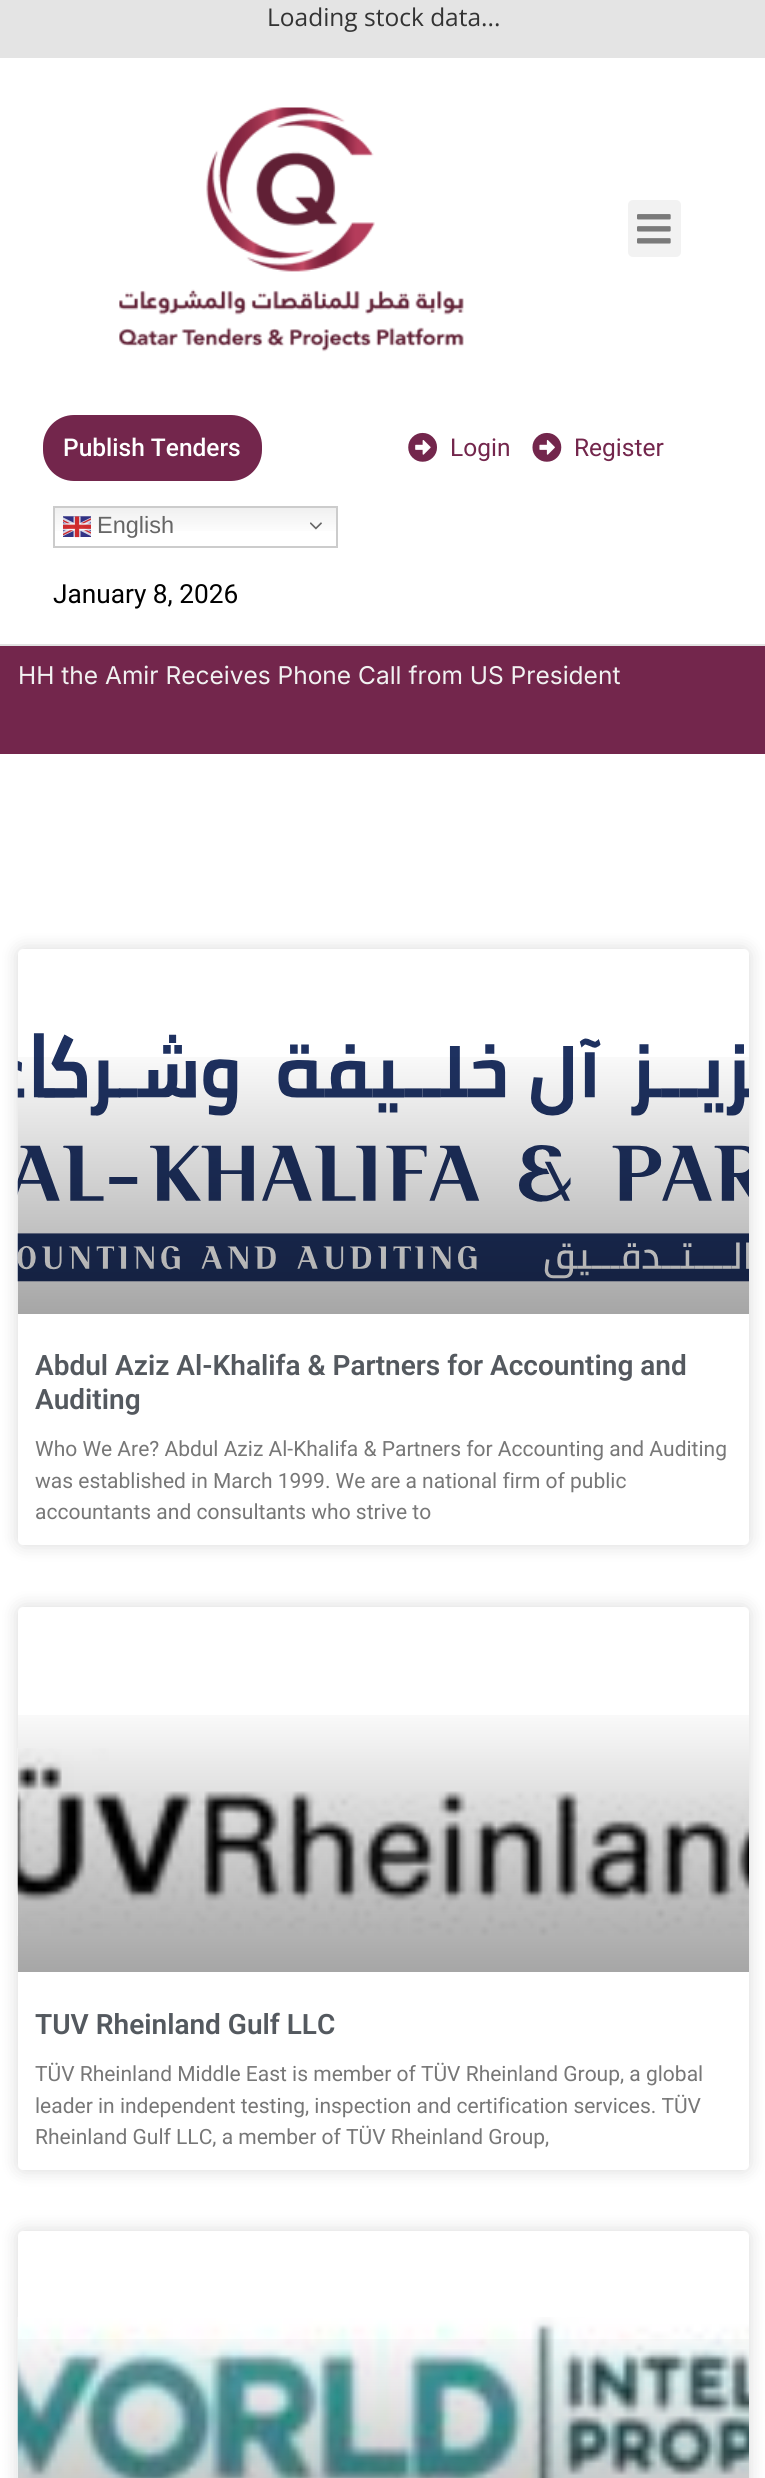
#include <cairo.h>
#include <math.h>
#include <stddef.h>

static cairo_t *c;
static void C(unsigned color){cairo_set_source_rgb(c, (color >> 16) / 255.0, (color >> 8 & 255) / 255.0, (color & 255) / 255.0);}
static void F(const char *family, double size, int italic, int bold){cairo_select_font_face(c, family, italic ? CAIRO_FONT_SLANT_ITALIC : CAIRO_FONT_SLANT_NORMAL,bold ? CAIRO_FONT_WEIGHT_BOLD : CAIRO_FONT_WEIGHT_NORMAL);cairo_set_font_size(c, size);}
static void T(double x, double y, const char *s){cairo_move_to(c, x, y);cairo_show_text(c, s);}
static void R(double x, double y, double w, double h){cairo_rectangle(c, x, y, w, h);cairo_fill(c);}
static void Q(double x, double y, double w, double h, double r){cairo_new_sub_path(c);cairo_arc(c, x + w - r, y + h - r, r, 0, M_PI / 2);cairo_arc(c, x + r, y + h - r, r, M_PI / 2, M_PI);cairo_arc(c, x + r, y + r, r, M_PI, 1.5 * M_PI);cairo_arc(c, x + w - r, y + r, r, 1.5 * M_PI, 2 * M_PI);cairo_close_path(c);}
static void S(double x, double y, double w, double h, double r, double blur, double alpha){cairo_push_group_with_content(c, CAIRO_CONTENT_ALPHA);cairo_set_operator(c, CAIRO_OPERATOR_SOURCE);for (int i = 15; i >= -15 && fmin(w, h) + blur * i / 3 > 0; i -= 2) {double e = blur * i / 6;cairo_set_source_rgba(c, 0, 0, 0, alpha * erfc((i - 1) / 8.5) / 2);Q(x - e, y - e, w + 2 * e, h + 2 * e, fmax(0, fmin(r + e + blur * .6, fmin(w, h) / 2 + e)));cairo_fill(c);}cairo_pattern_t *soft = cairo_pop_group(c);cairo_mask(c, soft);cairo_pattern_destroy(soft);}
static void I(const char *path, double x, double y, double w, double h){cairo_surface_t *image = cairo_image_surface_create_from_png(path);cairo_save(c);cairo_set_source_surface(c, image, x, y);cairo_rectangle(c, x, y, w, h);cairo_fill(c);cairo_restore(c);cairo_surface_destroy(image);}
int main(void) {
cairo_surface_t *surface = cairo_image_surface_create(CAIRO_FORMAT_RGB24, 765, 2478);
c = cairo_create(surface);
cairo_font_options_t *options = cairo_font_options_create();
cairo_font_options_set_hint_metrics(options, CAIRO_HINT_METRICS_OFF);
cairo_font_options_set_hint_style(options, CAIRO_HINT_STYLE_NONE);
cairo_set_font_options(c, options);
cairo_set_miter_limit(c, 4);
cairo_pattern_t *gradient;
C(0xffffff);
cairo_paint(c);
C(0xe4e4e4);
R(0,0,765,58);
F("Open Sans",24.5,0,0);
C(0x333333);
T(267,26,"Loading stock data...");
C(0xe2e2e2);
R(0,644,765,2);
I("1.png",119,107,345,245);
C(0xf2f2f2);
Q(628,200,53,57,5);
cairo_fill(c);
I("2.png",637,214,34,30);
C(0x73264c);
Q(41,413,223,70,33);
cairo_fill_preserve(c);
C(0xffffff);
cairo_set_line_width(c,4);
cairo_stroke(c);
F("Roboto Medium",24.5,0,0);
T(63,456,"Publish Tenders");
I("3.png",408,432,29,30);
F("Roboto",24.5,0,0);
C(0x73264c);
T(450,456,"Login");
I("4.png",532,432,30,30);
T(574,456,"Register");
gradient = cairo_pattern_create_linear(195,506,195,548);
cairo_pattern_add_color_stop_rgba(gradient,0,0.937,0.937,0.937,1);
cairo_pattern_add_color_stop_rgba(gradient,.7,1,1,1,1);
cairo_set_source(c,gradient);
cairo_pattern_destroy(gradient);
R(55,508,281,23);
cairo_rectangle(c,54,507,283,40);
C(0xcccccc);
cairo_set_line_width(c,2);
cairo_stroke(c);
I("5.png",63,516,28,22);
F("Liberation Sans",23.5,0,0);
C(0x666666);
T(97,533,"English");
I("6.png",310,522,12,8);
F("Roboto",26.25,0,0);
C(0x000000);
T(53,603,"January 8, 2026");
C(0x73264c);
R(0,646,765,108);
F("Inter",24.5,0,0);
C(0xf1f1f1);
T(18,684,"HH the Amir Receives Phone Call from US President");
C(0x000000);
S(18,949,731,596,5,9,.15);
C(0xffffff);
Q(18,949,731,596,5);
cairo_fill(c);
I("7.png",17,1033,732,249);
gradient = cairo_pattern_create_linear(383,1314,383,949);
cairo_pattern_add_color_stop_rgba(gradient,0,0,0,0,.35);
cairo_pattern_add_color_stop_rgba(gradient,.75,0,0,0,0);
cairo_set_source(c,gradient);
cairo_pattern_destroy(gradient);
R(18,1057,731,257);
F("Roboto SemiBold",28,0,0);
C(0x54595f);
T(35,1375,"Abdul Aziz Al-Khalifa & Partners for Accounting and");
T(35,1409,"Auditing");
F("Roboto",21,0,0);
C(0x777777);
T(35,1456,"Who We Are? Abdul Aziz Al-Khalifa & Partners for Accounting and Auditing");
T(35,1488,"was established in March 1999. We are a national firm of public");
T(35,1519,"accountants and consultants who strive to");
C(0x000000);
S(18,1607,731,563,5,9,.15);
C(0xffffff);
Q(18,1607,731,563,5);
cairo_fill(c);
I("8.png",17,1748,732,188);
gradient = cairo_pattern_create_linear(383,1972,383,1607);
cairo_pattern_add_color_stop_rgba(gradient,0,0,0,0,.35);
cairo_pattern_add_color_stop_rgba(gradient,.75,0,0,0,0);
cairo_set_source(c,gradient);
cairo_pattern_destroy(gradient);
R(18,1715,731,257);
F("Roboto SemiBold",28,0,0);
C(0x54595f);
T(35,2034,"TUV Rheinland Gulf LLC");
F("Roboto",21,0,0);
C(0x777777);
T(35,2081,"TÜV Rheinland Middle East is member of TÜV Rheinland Group, a global");
T(35,2113,"leader in independent testing, inspection and certification services. TÜV");
T(35,2144,"Rheinland Gulf LLC, a member of TÜV Rheinland Group,");
C(0x000000);
S(18,2231,731,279,5,9,.15);
C(0xffffff);
Q(18,2231,731,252,5);
cairo_fill(c);
I("9.png",17,2317,732,161);
gradient = cairo_pattern_create_linear(383,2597,383,2231);
cairo_pattern_add_color_stop_rgba(gradient,0,0,0,0,.35);
cairo_pattern_add_color_stop_rgba(gradient,.75,0,0,0,0);
cairo_set_source(c,gradient);
cairo_pattern_destroy(gradient);
R(18,2339,731,139);
cairo_surface_write_to_png(surface, "o.png");
cairo_font_options_destroy(options);
cairo_destroy(c);
cairo_surface_destroy(surface);
return 0;
}
